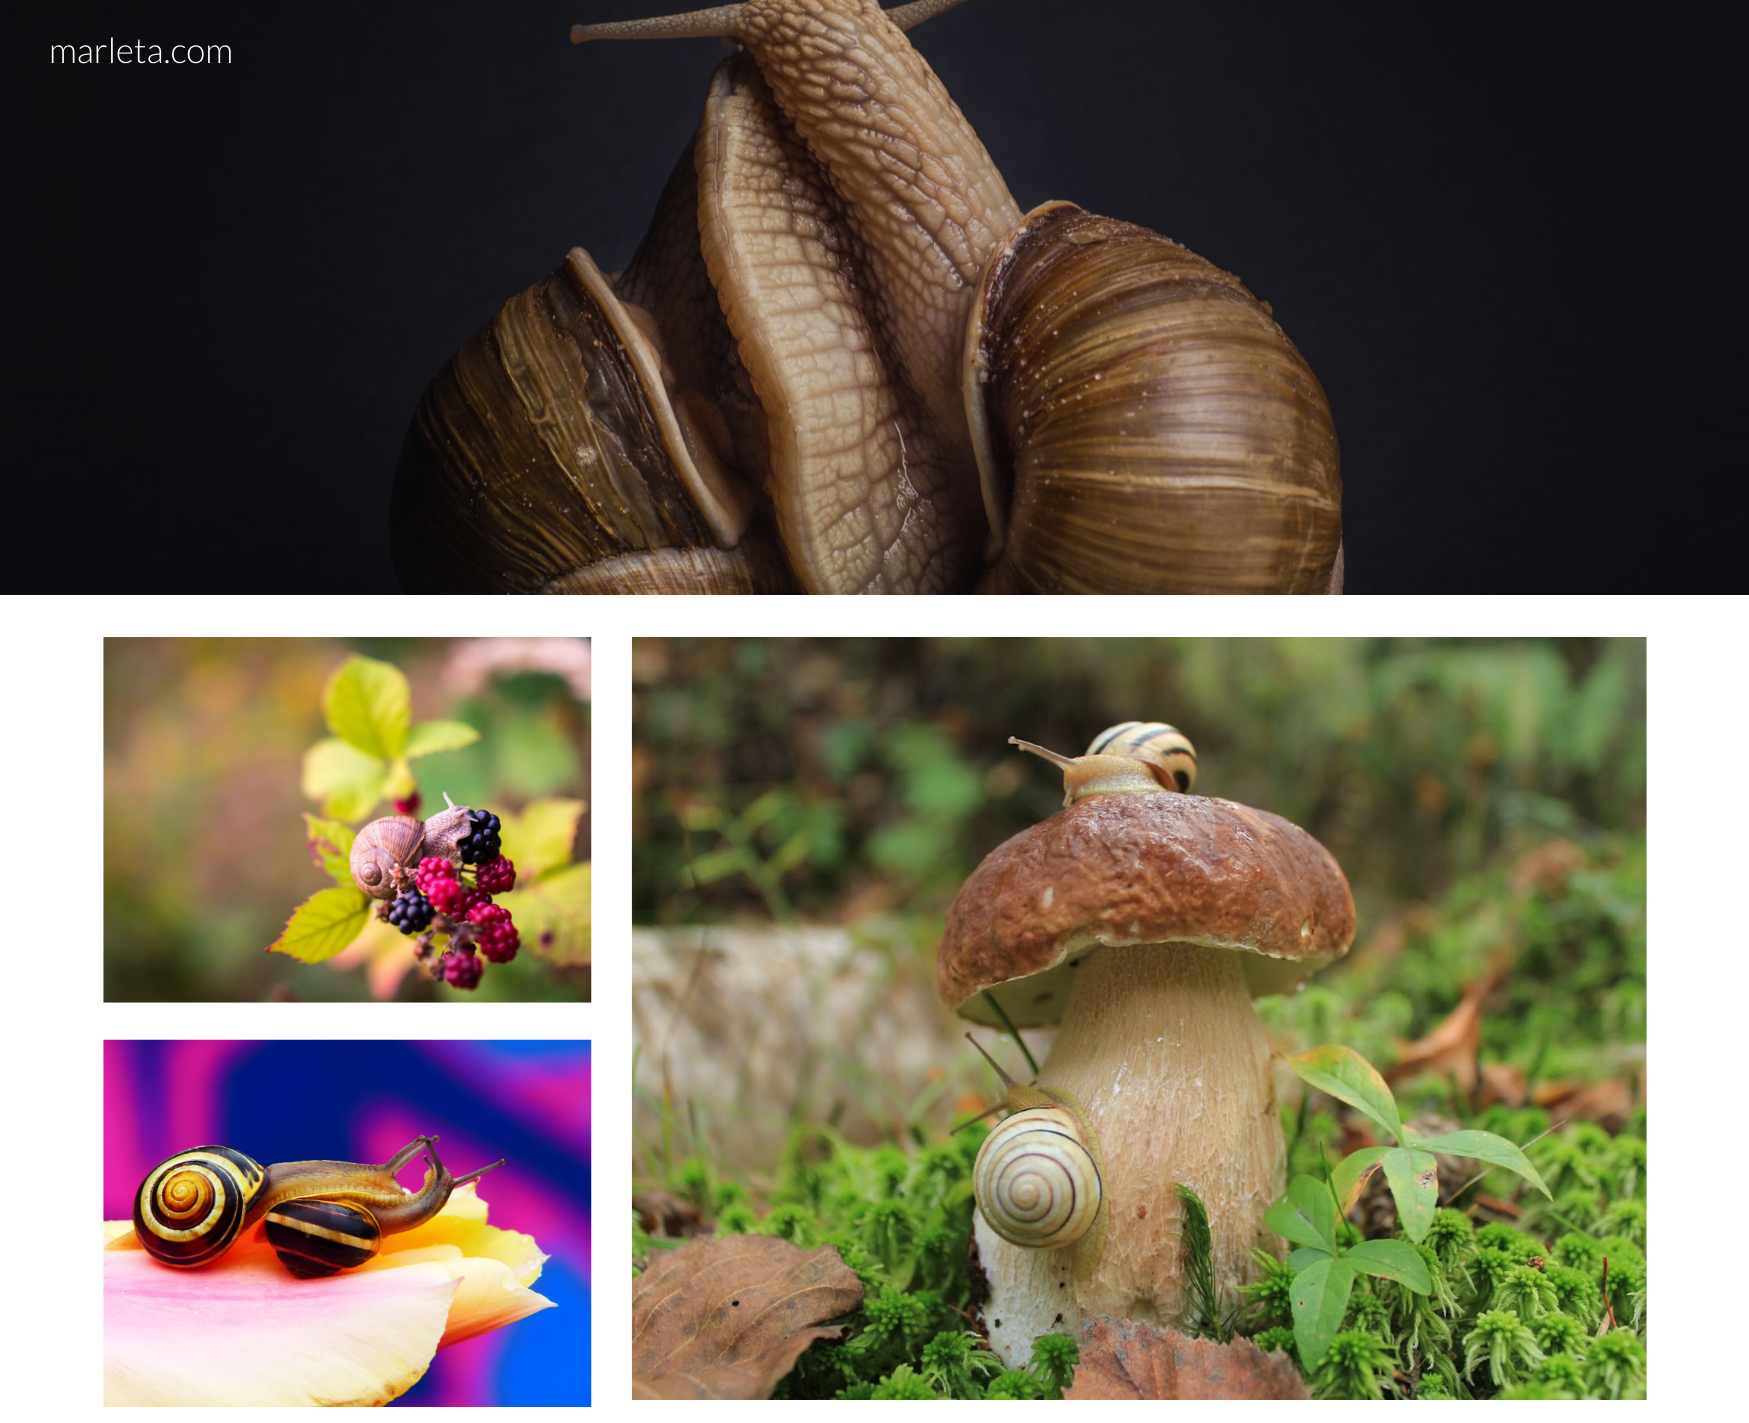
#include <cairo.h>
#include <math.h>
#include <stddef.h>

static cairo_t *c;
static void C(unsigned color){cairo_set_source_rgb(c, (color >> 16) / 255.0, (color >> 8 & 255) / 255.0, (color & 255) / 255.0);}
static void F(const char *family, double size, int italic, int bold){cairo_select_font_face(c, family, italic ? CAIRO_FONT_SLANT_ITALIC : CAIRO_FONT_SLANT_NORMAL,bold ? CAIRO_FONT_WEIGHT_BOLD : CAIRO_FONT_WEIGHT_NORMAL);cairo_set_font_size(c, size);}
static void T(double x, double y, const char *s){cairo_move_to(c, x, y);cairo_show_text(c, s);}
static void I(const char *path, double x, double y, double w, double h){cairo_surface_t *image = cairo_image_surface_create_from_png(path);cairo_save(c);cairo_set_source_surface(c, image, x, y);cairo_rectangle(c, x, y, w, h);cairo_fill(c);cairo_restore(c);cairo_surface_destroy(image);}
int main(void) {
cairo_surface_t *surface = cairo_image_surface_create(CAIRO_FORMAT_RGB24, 1749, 1423);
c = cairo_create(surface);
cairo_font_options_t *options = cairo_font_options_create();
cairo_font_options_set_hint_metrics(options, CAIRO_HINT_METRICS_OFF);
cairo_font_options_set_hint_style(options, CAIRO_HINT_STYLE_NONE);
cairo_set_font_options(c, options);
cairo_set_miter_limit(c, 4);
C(0xffffff);
cairo_paint(c);
I("1.png",0,0,1749,595);
I("2.png",103,637,489,366);
I("3.png",103,1039,489,368);
I("4.png",631,637,1016,763);
F("Lato Light",35,0,0);
C(0xffffff);
T(49,63,"marleta.com");
cairo_surface_write_to_png(surface, "o.png");
cairo_font_options_destroy(options);
cairo_destroy(c);
cairo_surface_destroy(surface);
return 0;
}
